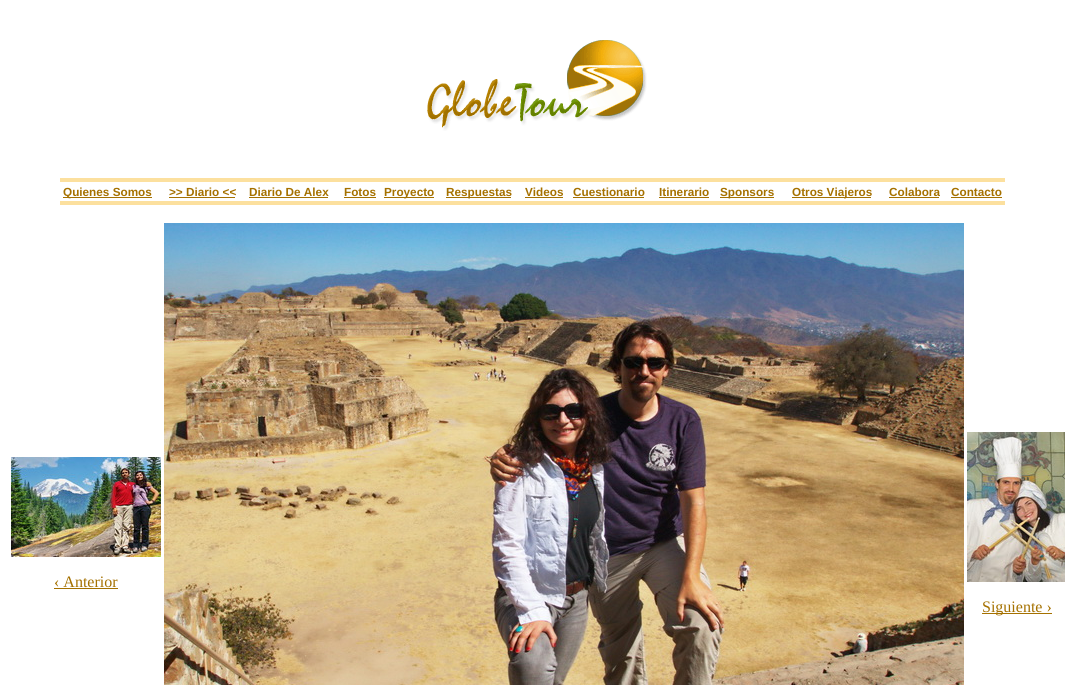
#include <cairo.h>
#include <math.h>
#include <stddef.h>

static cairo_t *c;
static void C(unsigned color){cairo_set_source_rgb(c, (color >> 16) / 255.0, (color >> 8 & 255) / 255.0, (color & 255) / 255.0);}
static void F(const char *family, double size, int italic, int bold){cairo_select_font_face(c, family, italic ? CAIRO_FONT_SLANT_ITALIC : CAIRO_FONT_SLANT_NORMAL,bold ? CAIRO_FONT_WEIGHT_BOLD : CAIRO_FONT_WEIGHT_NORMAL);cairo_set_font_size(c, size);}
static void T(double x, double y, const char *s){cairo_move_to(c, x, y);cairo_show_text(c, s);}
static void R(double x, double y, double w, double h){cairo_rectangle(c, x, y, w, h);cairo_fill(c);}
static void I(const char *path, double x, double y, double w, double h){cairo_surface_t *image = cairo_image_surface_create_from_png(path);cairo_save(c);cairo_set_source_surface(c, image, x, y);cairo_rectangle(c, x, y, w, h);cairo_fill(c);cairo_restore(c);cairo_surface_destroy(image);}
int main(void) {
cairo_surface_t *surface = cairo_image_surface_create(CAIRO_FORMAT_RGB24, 1065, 685);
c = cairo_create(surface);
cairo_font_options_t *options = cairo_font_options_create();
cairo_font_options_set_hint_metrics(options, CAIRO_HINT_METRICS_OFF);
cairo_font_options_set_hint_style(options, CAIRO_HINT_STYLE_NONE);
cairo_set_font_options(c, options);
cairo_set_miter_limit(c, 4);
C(0xffffff);
cairo_paint(c);
I("1.png",427,40,220,91);
C(0xfce09e);
R(60,178,945,4);
C(0xa57100);
R(63,197,89,1);
F("Liberation Sans",11.75,0,1);
T(63,196,"Quienes Somos");
T(169,196,">> Diario <<");
R(169,197,66,1);
T(249,196,"Diario De Alex");
R(249,197,79,1);
T(344,196,"Fotos");
R(344,197,32,1);
R(384,197,50,1);
T(384,196,"Proyecto");
R(446,197,65,1);
T(446,196,"Respuestas");
T(525,196,"Videos");
R(525,197,38,1);
T(573,196,"Cuestionario");
R(573,197,71,1);
T(659,196,"Itinerario");
R(659,197,50,1);
R(720,197,54,1);
T(720,196,"Sponsors");
R(792,197,79,1);
T(792,196,"Otros Viajeros");
T(889,196,"Colabora");
R(889,197,50,1);
T(951,196,"Contacto");
R(951,197,51,1);
C(0xfce09e);
R(60,201,945,4);
I("2.png",11,457,150,100);
F("Liberation Serif",16,0,0);
C(0xa57100);
T(54,587,"‹ Anterior");
R(54,588,64,1);
I("3.png",164,223,800,462);
I("4.png",967,432,98,150);
R(982,613,70,1);
T(982,612,"Siguiente ›");
cairo_surface_write_to_png(surface, "o.png");
cairo_font_options_destroy(options);
cairo_destroy(c);
cairo_surface_destroy(surface);
return 0;
}
